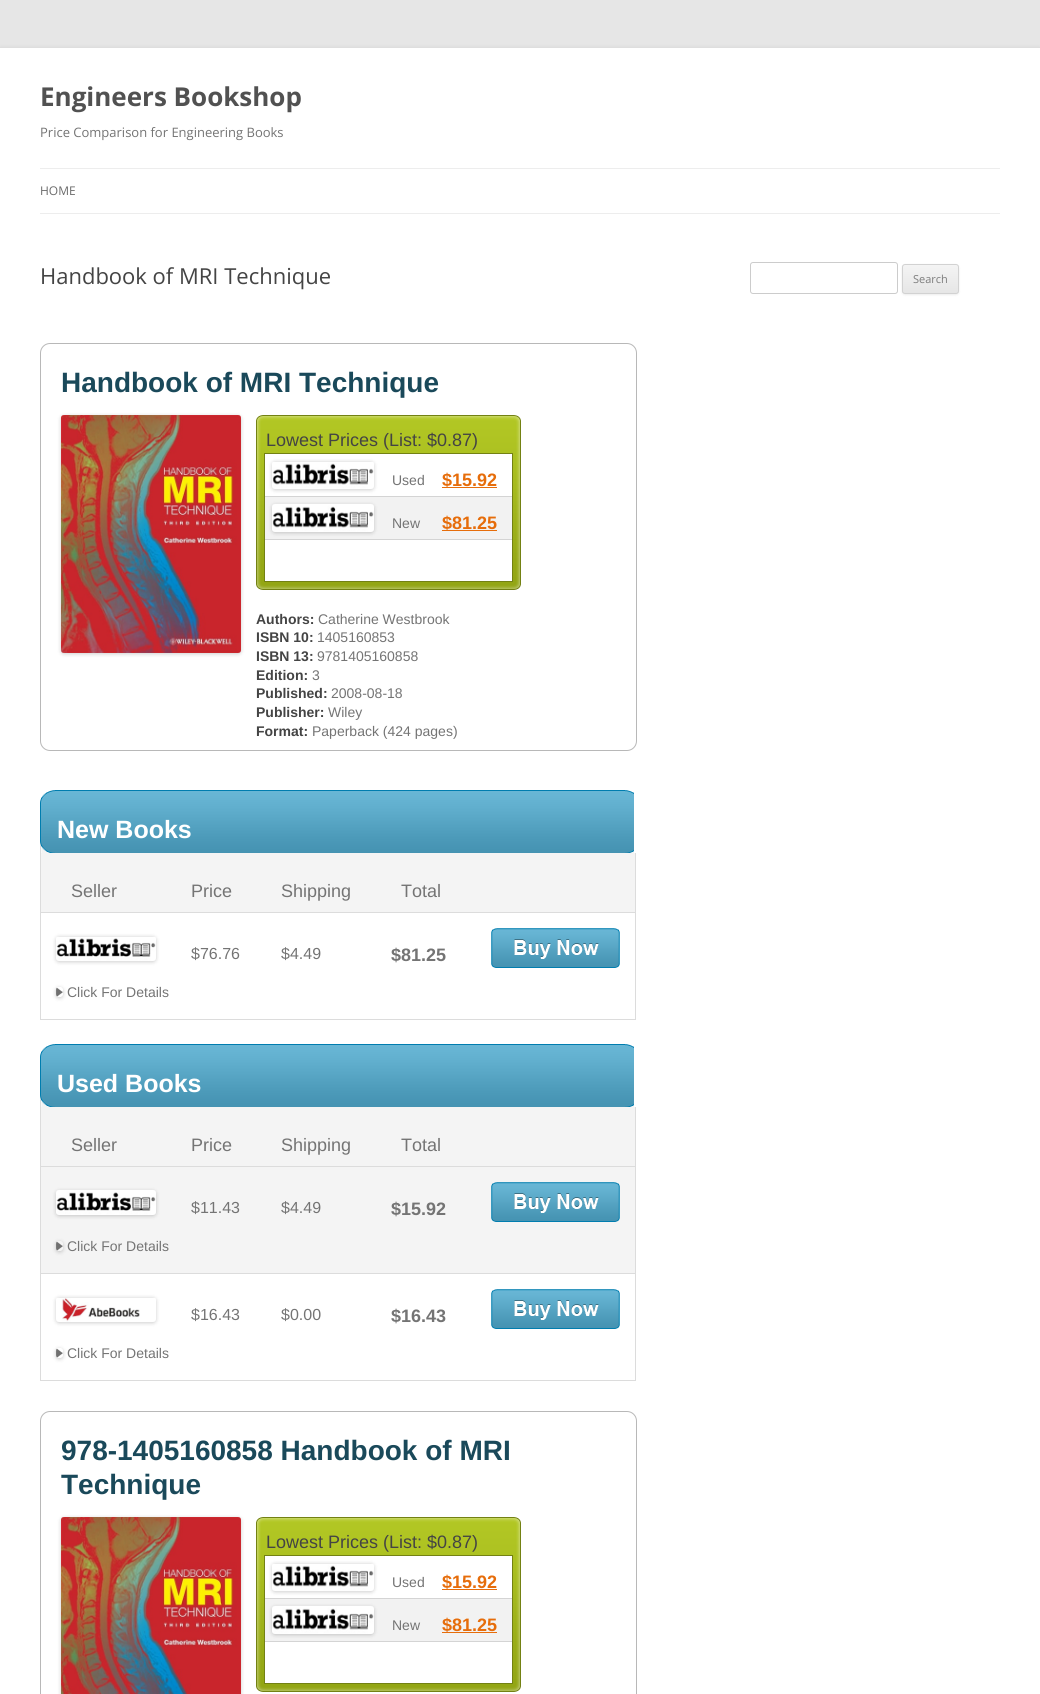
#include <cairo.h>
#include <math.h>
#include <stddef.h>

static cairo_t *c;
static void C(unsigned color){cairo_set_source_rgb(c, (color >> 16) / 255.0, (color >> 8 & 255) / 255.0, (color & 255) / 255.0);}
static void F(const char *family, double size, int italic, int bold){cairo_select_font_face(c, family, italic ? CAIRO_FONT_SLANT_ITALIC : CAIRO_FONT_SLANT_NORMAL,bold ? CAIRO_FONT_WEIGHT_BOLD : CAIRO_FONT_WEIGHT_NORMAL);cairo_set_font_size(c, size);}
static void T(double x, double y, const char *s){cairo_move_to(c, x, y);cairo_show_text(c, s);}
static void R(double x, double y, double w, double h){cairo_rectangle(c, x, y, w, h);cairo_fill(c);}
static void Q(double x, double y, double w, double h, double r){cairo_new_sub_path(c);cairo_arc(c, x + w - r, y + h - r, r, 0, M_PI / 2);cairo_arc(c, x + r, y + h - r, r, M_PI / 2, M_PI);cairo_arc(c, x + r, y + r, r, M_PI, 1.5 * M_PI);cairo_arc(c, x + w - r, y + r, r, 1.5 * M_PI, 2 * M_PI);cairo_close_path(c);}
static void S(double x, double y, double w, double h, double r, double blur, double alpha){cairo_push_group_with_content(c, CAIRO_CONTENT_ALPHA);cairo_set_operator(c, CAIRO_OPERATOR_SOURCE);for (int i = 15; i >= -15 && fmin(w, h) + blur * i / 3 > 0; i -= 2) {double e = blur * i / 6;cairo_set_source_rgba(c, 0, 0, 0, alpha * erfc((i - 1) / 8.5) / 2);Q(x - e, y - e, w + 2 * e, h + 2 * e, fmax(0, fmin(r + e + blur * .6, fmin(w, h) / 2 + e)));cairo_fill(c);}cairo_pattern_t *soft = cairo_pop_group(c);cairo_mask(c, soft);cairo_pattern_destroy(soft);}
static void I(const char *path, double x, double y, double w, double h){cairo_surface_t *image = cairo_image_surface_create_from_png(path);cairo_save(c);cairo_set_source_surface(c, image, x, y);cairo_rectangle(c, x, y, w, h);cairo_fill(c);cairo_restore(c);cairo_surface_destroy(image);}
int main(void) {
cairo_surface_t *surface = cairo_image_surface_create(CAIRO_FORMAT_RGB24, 1040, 1694);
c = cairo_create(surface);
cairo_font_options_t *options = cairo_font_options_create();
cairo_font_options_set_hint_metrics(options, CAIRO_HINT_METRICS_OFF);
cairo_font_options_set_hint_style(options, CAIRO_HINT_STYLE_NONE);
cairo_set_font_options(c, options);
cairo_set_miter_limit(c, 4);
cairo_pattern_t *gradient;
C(0xe6e6e6);
cairo_paint(c);
C(0x646464);
S(0,50,1040,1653,0,3,.3);
C(0xffffff);
R(0,48,1040,1646);
F("Open Sans",26,0,1);
C(0x515151);
T(40,106,"Engineers Bookshop");
F("Open Sans",13,0,0);
C(0x747474);
T(40,137,"Price Comparison for Engineering Books");
C(0xededed);
R(40,168,960,1);
R(40,213,960,1);
F("Open Sans",12,0,0);
C(0x6a6a6a);
T(40,195,"HOME");
F("Open Sans",22,0,0);
C(0x444444);
T(40,284,"Handbook of MRI Technique");
Q(40.5,343.5,596,407,9.5);
C(0xb8b8b8);
cairo_set_line_width(c,1);
cairo_stroke(c);
F("Liberation Sans",28,0,1);
C(0x1a495a);
T(61,392,"Handbook of MRI Technique");
C(0x000000);
S(61,416,180,238,3,2,.2);
I("1.png",61,415,180,238);
I("2.png",256,415,265,175);
F("Liberation Sans",18,0,0);
C(0x444444);
T(266,446,"Lowest Prices (List: $0.87)");
C(0xffffff);
cairo_rectangle(c,264.5,453.5,248,128);
cairo_fill_preserve(c);
C(0x738113);
cairo_stroke(c);
C(0x000000);
S(272,462,102,28,3,2,.2);
I("3.png",272,462,102,27);
F("Liberation Sans",14,0,0);
C(0x747474);
T(392,485,"Used");
C(0xe66d0b);
R(442,487,55,1);
F("Liberation Sans",18,0,1);
T(442,486,"$15.92");
C(0xf2f2f2);
R(265,497,247,42);
C(0xd4d4d4);
R(265,496,247,1);
R(265,539,247,1);
C(0x000000);
S(272,505,102,28,3,2,.2);
I("4.png",272,504,102,28);
F("Liberation Sans",14,0,0);
C(0x747474);
T(392,528,"New");
C(0xe66d0b);
R(442,530,55,1);
F("Liberation Sans",18,0,1);
T(442,529,"$81.25");
F("Liberation Sans",14,0,1);
C(0x444444);
T(256,624,"Authors:");
F("Liberation Sans",14,0,0);
C(0x747474);
T(318,624,"Catherine Westbrook");
F("Liberation Sans",14,0,1);
C(0x444444);
T(256,642,"ISBN 10:");
F("Liberation Sans",14,0,0);
C(0x747474);
T(317,642,"1405160853");
F("Liberation Sans",14,0,1);
C(0x444444);
T(256,661,"ISBN 13:");
F("Liberation Sans",14,0,0);
C(0x747474);
T(317,661,"9781405160858");
F("Liberation Sans",14,0,1);
C(0x444444);
T(256,680,"Edition:");
F("Liberation Sans",14,0,0);
C(0x747474);
T(312,680,"3");
F("Liberation Sans",14,0,1);
C(0x444444);
T(256,698,"Published:");
F("Liberation Sans",14,0,0);
C(0x747474);
T(331,698,"2008-08-18");
F("Liberation Sans",14,0,1);
C(0x444444);
T(256,717,"Publisher:");
F("Liberation Sans",14,0,0);
C(0x747474);
T(328,717,"Wiley");
F("Liberation Sans",14,0,1);
C(0x444444);
T(256,736,"Format:");
F("Liberation Sans",14,0,0);
C(0x747474);
T(312,736,"Paperback (424 pages)");
I("5.png",40,790,594,63);
F("Liberation Sans",25,0,1);
C(0xffffff);
T(57,838,"New Books");
C(0xf4f4f4);
R(41,853,594,59);
C(0xdcdcdc);
R(635,853,1,167);
R(40,912,596,1);
R(40,853,1,60);
F("Liberation Sans",18,0,0);
C(0x747474);
T(71,897,"Seller");
T(191,897,"Price");
T(281,897,"Shipping");
T(401,897,"Total");
C(0xdcdcdc);
R(40,1019,596,1);
R(40,913,1,107);
C(0x000000);
S(56,937,100,25,3,2,.2);
I("6.png",56,937,100,24);
F("Liberation Sans",16,0,0);
C(0x747474);
T(191,959,"$76.76");
T(281,959,"$4.49");
F("Liberation Sans",18,0,1);
T(391,961,"$81.25");
I("7.png",491,928,129,40);
cairo_save(c);
cairo_set_fill_rule(c,CAIRO_FILL_RULE_EVEN_ODD);
cairo_new_path(c);
cairo_move_to(c,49,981);
cairo_line_to(c,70,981);
cairo_line_to(c,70,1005);
cairo_line_to(c,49,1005);
cairo_close_path(c);
cairo_move_to(c,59,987);
cairo_line_to(c,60,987);
cairo_curve_to(c,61.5,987,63,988.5,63,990);
cairo_line_to(c,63,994);
cairo_curve_to(c,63,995.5,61.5,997,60,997);
cairo_line_to(c,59,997);
cairo_curve_to(c,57.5,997,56,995.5,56,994);
cairo_line_to(c,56,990);
cairo_curve_to(c,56,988.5,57.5,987,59,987);
cairo_close_path(c);
cairo_clip(c);
C(0x000000);
S(56,988,7,10,3,2,.2);
cairo_restore(c);
F("Liberation Sans",14,0,0);
T(67,997,"Click For Details");
I("8.png",56,987,7,10);
I("5.png",40,1044,594,63);
F("Liberation Sans",25,0,1);
C(0xffffff);
T(57,1092,"Used Books");
C(0xf4f4f4);
R(41,1107,594,59);
C(0xdcdcdc);
R(635,1107,1,274);
R(40,1166,596,1);
R(40,1107,1,60);
F("Liberation Sans",18,0,0);
C(0x747474);
T(71,1151,"Seller");
T(191,1151,"Price");
T(281,1151,"Shipping");
T(401,1151,"Total");
C(0xf4f4f4);
R(41,1167,594,106);
C(0xdcdcdc);
R(40,1273,596,1);
R(40,1167,1,107);
C(0x000000);
S(56,1191,100,25,3,2,.2);
I("9.png",56,1190,100,25);
F("Liberation Sans",16,0,0);
C(0x747474);
T(191,1213,"$11.43");
T(281,1213,"$4.49");
F("Liberation Sans",18,0,1);
T(391,1215,"$15.92");
I("10.png",491,1182,129,40);
cairo_save(c);
cairo_set_fill_rule(c,CAIRO_FILL_RULE_EVEN_ODD);
cairo_new_path(c);
cairo_move_to(c,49,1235);
cairo_line_to(c,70,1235);
cairo_line_to(c,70,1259);
cairo_line_to(c,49,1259);
cairo_close_path(c);
cairo_move_to(c,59,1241);
cairo_line_to(c,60,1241);
cairo_curve_to(c,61.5,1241,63,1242.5,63,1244);
cairo_line_to(c,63,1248);
cairo_curve_to(c,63,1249.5,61.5,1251,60,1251);
cairo_line_to(c,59,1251);
cairo_curve_to(c,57.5,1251,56,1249.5,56,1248);
cairo_line_to(c,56,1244);
cairo_curve_to(c,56,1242.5,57.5,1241,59,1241);
cairo_close_path(c);
cairo_clip(c);
C(0x000000);
S(56,1242,7,10,3,2,.2);
cairo_restore(c);
F("Liberation Sans",14,0,0);
T(67,1251,"Click For Details");
I("11.png",56,1241,7,10);
C(0xdcdcdc);
R(40,1380,596,1);
R(40,1274,1,107);
C(0x000000);
S(56,1298,100,25,3,2,.2);
I("12.png",56,1298,100,24);
F("Liberation Sans",16,0,0);
C(0x747474);
T(191,1320,"$16.43");
T(281,1320,"$0.00");
F("Liberation Sans",18,0,1);
T(391,1322,"$16.43");
I("7.png",491,1289,129,40);
cairo_save(c);
cairo_set_fill_rule(c,CAIRO_FILL_RULE_EVEN_ODD);
cairo_new_path(c);
cairo_move_to(c,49,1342);
cairo_line_to(c,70,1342);
cairo_line_to(c,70,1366);
cairo_line_to(c,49,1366);
cairo_close_path(c);
cairo_move_to(c,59,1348);
cairo_line_to(c,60,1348);
cairo_curve_to(c,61.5,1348,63,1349.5,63,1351);
cairo_line_to(c,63,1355);
cairo_curve_to(c,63,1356.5,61.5,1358,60,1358);
cairo_line_to(c,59,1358);
cairo_curve_to(c,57.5,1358,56,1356.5,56,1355);
cairo_line_to(c,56,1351);
cairo_curve_to(c,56,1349.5,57.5,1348,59,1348);
cairo_close_path(c);
cairo_clip(c);
C(0x000000);
S(56,1349,7,10,3,2,.2);
cairo_restore(c);
F("Liberation Sans",14,0,0);
T(67,1358,"Click For Details");
I("8.png",56,1348,7,10);
Q(40.5,1411.5,596,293,9.5);
C(0xb8b8b8);
cairo_stroke(c);
F("Liberation Sans",28,0,1);
C(0x1a495a);
T(61,1460,"978-1405160858 Handbook of MRI");
T(61,1494,"Technique");
C(0x000000);
S(61,1518,180,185,3,2,.2);
I("13.png",61,1517,180,177);
I("2.png",256,1517,265,175);
F("Liberation Sans",18,0,0);
C(0x444444);
T(266,1548,"Lowest Prices (List: $0.87)");
C(0xffffff);
cairo_rectangle(c,264.5,1555.5,248,128);
cairo_fill_preserve(c);
C(0x738113);
cairo_stroke(c);
C(0x000000);
S(272,1564,102,28,3,2,.2);
I("3.png",272,1564,102,27);
F("Liberation Sans",14,0,0);
C(0x747474);
T(392,1587,"Used");
C(0xe66d0b);
R(442,1589,55,1);
F("Liberation Sans",18,0,1);
T(442,1588,"$15.92");
C(0xf2f2f2);
R(265,1599,247,42);
C(0xd4d4d4);
R(265,1598,247,1);
R(265,1641,247,1);
C(0x000000);
S(272,1607,102,28,3,2,.2);
I("4.png",272,1606,102,28);
F("Liberation Sans",14,0,0);
C(0x747474);
T(392,1630,"New");
C(0xe66d0b);
R(442,1632,55,1);
F("Liberation Sans",18,0,1);
T(442,1631,"$81.25");
Q(750.5,262.5,147,31,2.5);
C(0xcccccc);
cairo_stroke(c);
C(0x404040);
S(902,265,57,30,3,1,.1);
cairo_save(c);
Q(902,264,57,30,3);
cairo_clip(c);
gradient = cairo_pattern_create_linear(931,265,931,293);
cairo_pattern_add_color_stop_rgba(gradient,0,0.957,0.957,0.957,1);
cairo_pattern_add_color_stop_rgba(gradient,1,0.902,0.902,0.902,1);
cairo_set_source(c,gradient);
cairo_pattern_destroy(gradient);
R(902,265,57,28);
cairo_restore(c);
Q(902.5,264.5,56,29,2.5);
C(0xd2d2d2);
cairo_stroke(c);
F("Open Sans",11,0,0);
C(0x7c7c7c);
T(913,283,"Search");
cairo_surface_write_to_png(surface, "o.png");
cairo_font_options_destroy(options);
cairo_destroy(c);
cairo_surface_destroy(surface);
return 0;
}
